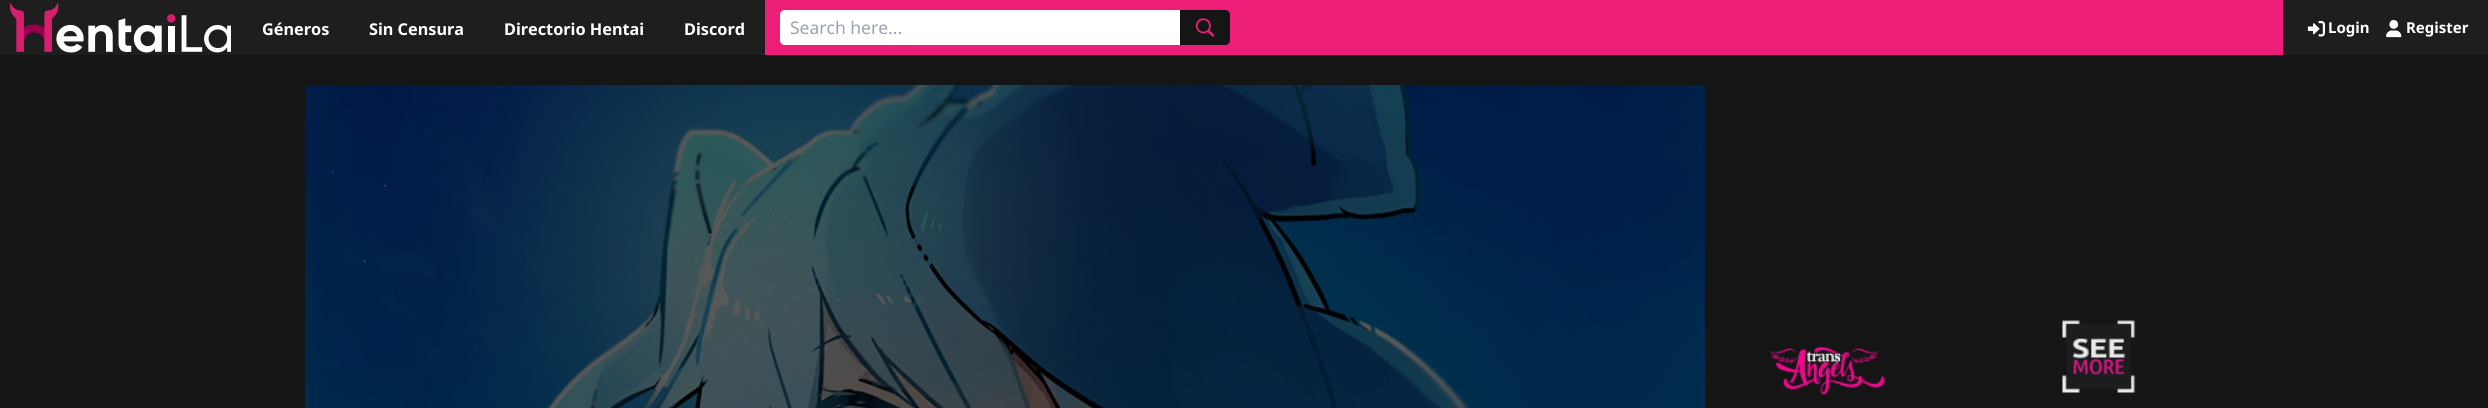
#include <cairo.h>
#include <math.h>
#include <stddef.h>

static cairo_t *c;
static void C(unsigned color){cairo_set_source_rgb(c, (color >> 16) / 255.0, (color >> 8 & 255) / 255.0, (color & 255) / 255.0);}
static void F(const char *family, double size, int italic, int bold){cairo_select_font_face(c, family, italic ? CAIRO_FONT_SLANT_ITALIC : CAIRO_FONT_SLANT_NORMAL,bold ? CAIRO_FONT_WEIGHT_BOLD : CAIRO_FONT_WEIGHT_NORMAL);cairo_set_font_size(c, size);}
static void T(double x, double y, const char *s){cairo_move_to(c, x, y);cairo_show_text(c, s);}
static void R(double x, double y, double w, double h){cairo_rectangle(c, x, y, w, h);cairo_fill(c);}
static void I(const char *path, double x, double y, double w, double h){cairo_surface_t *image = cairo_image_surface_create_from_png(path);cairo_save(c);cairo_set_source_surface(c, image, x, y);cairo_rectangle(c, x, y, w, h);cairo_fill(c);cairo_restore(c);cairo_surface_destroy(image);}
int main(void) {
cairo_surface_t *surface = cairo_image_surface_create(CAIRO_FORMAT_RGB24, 2488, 408);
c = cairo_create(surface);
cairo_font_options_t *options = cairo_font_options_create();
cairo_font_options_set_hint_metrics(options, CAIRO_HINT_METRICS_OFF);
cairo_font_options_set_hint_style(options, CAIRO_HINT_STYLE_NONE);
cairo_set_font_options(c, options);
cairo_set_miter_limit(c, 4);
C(0x151515);
cairo_paint(c);
C(0x1e1e1e);
R(0,0,2488,55);
I("1.png",10,3,221,50);
F("Noto Sans",16.25,0,1);
C(0xffffff);
T(262,35,"Géneros");
T(369,35,"Sin Censura");
T(504,35,"Directorio Hentai");
T(684,35,"Discord");
C(0xed1e78);
R(765,0,1518,55);
C(0xffffff);
cairo_new_path(c);
cairo_move_to(c,785,10);
cairo_line_to(c,1180,10);
cairo_line_to(c,1180,45);
cairo_line_to(c,785,45);
cairo_curve_to(c,782,45,780,43,780,40);
cairo_line_to(c,780,15);
cairo_curve_to(c,780,12,782,10,785,10);
cairo_close_path(c);
cairo_fill(c);
F("Noto Sans",17.5,0,0);
C(0x9ca3af);
T(790,34,"Search here...");
C(0x151515);
cairo_new_path(c);
cairo_move_to(c,1180,10);
cairo_line_to(c,1225,10);
cairo_curve_to(c,1228,10,1230,12,1230,15);
cairo_line_to(c,1230,40);
cairo_curve_to(c,1230,43,1228,45,1225,45);
cairo_line_to(c,1180,45);
cairo_close_path(c);
cairo_fill(c);
I("2.png",1195,18,20,19);
I("3.png",2307,21,18,16);
F("Noto Sans",15,0,1);
C(0xffffff);
T(2328,33,"Login");
I("4.png",2386,20,16,18);
T(2406,33,"Register");
I("5.png",305,85,1400,323);
I("6.png",1770,319,366,77);
cairo_surface_write_to_png(surface, "o.png");
cairo_font_options_destroy(options);
cairo_destroy(c);
cairo_surface_destroy(surface);
return 0;
}
